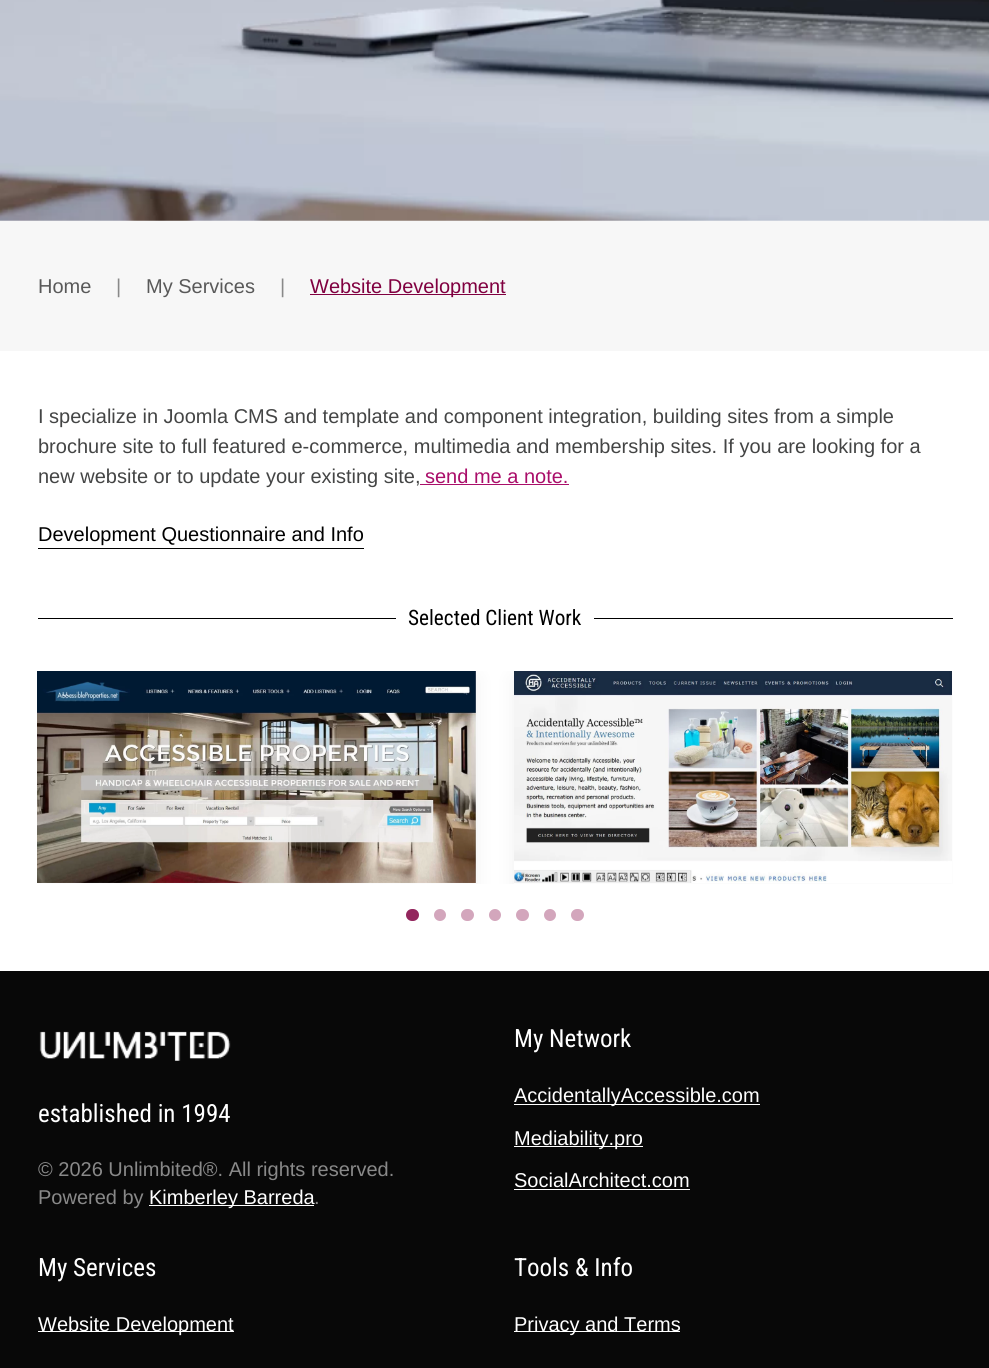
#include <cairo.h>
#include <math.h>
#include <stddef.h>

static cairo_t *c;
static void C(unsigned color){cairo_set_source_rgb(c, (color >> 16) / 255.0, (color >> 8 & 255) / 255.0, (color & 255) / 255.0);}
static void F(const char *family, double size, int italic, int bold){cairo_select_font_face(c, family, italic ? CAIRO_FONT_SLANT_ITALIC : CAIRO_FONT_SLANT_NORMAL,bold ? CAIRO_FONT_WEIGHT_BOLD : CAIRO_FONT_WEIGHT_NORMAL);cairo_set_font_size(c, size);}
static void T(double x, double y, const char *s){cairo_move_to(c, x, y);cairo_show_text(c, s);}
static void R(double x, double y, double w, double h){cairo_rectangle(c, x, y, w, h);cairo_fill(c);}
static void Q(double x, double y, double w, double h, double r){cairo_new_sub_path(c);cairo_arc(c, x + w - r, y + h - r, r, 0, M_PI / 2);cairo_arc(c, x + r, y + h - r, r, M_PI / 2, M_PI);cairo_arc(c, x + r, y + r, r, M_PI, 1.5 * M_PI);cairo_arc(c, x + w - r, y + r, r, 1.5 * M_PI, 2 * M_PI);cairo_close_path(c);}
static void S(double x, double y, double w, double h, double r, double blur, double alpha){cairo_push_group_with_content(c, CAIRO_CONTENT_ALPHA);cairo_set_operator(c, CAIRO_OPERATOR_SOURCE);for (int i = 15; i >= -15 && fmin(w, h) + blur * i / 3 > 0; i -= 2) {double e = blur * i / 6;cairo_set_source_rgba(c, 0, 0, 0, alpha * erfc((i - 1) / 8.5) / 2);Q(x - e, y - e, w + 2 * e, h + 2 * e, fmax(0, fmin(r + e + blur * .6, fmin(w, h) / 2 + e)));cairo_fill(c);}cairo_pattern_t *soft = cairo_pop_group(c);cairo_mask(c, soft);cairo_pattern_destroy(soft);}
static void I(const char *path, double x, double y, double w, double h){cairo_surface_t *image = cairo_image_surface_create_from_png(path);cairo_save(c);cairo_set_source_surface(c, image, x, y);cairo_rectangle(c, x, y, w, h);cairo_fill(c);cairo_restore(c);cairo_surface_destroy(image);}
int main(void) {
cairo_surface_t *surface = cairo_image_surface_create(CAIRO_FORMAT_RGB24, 989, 1368);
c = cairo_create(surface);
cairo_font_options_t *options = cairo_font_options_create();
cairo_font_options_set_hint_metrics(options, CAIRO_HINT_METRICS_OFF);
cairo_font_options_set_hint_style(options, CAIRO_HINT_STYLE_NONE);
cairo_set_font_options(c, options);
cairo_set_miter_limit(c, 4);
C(0xffffff);
cairo_paint(c);
I("1.png",0,0,989,221);
C(0xf7f7f7);
R(0,221,989,130);
F("Liberation Sans",20,0,0);
C(0x595959);
T(38,293,"Home");
C(0x898989);
T(116,293,"|");
C(0x595959);
T(146,293,"My Services");
C(0x898989);
T(280,293,"|");
C(0x800040);
R(310,294,196,1);
T(310,293,"Website Development");
C(0x444545);
T(38,423,"I specialize in Joomla CMS and template and component integration, building sites from a simple");
T(38,453,"brochure site to full featured e-commerce, multimedia and membership sites. If you are looking for a");
T(38,483,"new website or to update your existing site,");
C(0xaa0e6a);
T(425,483,"send me a note.");
R(420,484,149,1);
C(0x000000);
T(38,541,"Development Questionnaire and Info");
R(38,548,326,1);
R(38,618,358,1);
F("Roboto Condensed",21.25,0,0);
T(408,625,"Selected Client Work");
R(594,618,359,1);
C(0x93265d);
Q(406,909,13,12,6);
cairo_fill(c);
C(0xd3a6bc);
cairo_arc(c,440,915,6,0,2 * M_PI);
cairo_fill(c);
Q(461,909,13,12,6);
cairo_fill(c);
cairo_arc(c,495,915,6,0,2 * M_PI);
cairo_fill(c);
cairo_save(c);
cairo_rectangle(c,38,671,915,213);
cairo_clip(c);
C(0x000000);
S(38,678,438,212,0,10,.06);
cairo_restore(c);
cairo_set_source_rgba(c,1,1,1,0.7);
R(38,671,438,213);
I("2.png",37,671,439,212);
C(0xd3a6bc);
Q(516,909,13,12,6);
cairo_fill(c);
cairo_arc(c,550,915,6,0,2 * M_PI);
cairo_fill(c);
Q(571,909,13,12,6);
cairo_fill(c);
cairo_save(c);
cairo_rectangle(c,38,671,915,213);
cairo_clip(c);
C(0x000000);
S(514,678,439,212,0,10,.06);
cairo_restore(c);
cairo_set_source_rgba(c,1,1,1,0.7);
R(514,671,439,213);
I("3.png",514,671,438,212);
C(0x080808);
R(0,971,989,397);
I("4.png",39,1031,192,30);
F("Roboto Condensed",25,0,0);
C(0xffffff);
T(38,1122,"established in 1994");
F("Liberation Sans",20,0,0);
C(0x898989);
T(38,1176,"© 2026 Unlimbited®. All rights reserved.");
T(38,1204,"Powered by");
C(0xffffff);
R(149,1205,165,1);
T(149,1204,"Kimberley Barreda");
C(0x898989);
T(314,1204,".");
F("Roboto Condensed",25,0,0);
C(0xffffff);
T(514,1047,"My Network");
R(514,1104,246,1);
F("Liberation Sans",20,0,0);
T(514,1102,"AccidentallyAccessible.com");
R(514,1146,129,1);
T(514,1145,"Mediability.pro");
T(514,1187,"SocialArchitect.com");
R(514,1189,176,1);
F("Roboto Condensed",25,0,0);
T(38,1276,"My Services");
R(38,1331,196,1);
F("Liberation Sans",20,0,0);
T(38,1331,"Website Development");
F("Roboto Condensed",25,0,0);
T(514,1276,"Tools & Info");
R(514,1331,166,1);
F("Liberation Sans",20,0,0);
T(514,1331,"Privacy and Terms");
cairo_surface_write_to_png(surface, "o.png");
cairo_font_options_destroy(options);
cairo_destroy(c);
cairo_surface_destroy(surface);
return 0;
}
